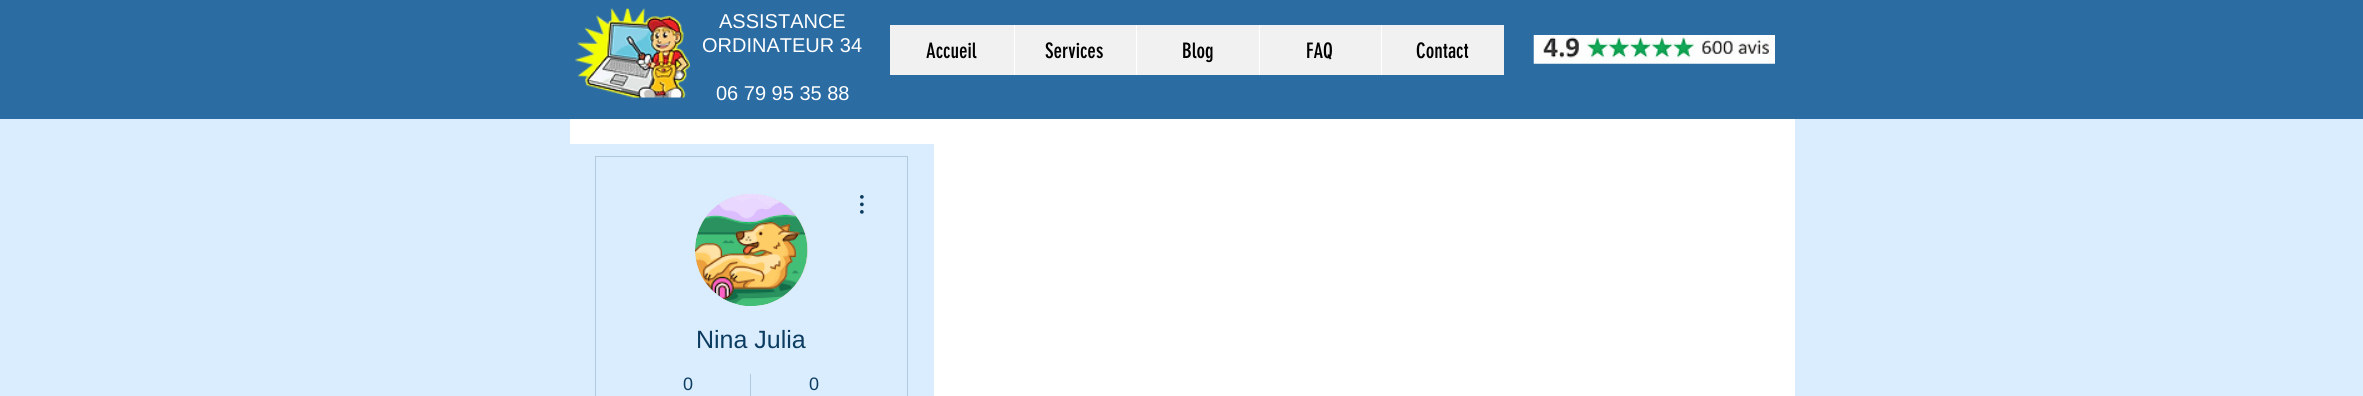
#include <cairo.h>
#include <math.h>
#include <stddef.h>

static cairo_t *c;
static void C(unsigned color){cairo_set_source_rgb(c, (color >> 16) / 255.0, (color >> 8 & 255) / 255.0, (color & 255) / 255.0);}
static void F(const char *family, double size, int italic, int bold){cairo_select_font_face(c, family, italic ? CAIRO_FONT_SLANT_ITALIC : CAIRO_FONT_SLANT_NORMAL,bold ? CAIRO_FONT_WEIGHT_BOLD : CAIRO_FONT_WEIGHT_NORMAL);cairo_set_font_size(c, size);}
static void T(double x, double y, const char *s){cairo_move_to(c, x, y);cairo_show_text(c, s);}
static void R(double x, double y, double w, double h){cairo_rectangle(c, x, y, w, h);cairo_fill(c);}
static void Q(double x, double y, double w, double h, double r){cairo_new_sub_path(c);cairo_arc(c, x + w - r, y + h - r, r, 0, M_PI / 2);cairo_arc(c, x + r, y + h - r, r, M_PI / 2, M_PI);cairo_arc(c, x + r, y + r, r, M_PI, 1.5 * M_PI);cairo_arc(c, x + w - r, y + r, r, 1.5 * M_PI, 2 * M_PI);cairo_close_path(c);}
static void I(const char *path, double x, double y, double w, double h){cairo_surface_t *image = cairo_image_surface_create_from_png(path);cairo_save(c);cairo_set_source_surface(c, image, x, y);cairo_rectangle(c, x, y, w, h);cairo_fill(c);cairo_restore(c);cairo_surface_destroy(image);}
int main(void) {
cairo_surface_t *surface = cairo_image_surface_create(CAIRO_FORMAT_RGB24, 2363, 396);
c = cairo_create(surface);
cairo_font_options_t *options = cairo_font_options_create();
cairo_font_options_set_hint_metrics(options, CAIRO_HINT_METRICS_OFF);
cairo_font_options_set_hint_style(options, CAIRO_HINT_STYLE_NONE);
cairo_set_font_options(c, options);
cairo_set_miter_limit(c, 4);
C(0xdaedff);
cairo_paint(c);
C(0x2b6ca3);
R(0,0,2363,119);
I("1.png",575,8,115,90);
F("Liberation Sans",20,0,0);
C(0xffffff);
T(719,28,"ASSISTANCE");
T(702,52,"ORDINATEUR 34");
T(716,100,"06 79 95 35 88");
C(0xf1f1f1);
R(890,25,614,50);
F("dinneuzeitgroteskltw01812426",21,0,0);
C(0x000000);
T(926,58,"Accueil");
C(0xffffff);
R(1014,25,1,50);
C(0x000000);
T(1045,58,"Services");
C(0xffffff);
R(1136,25,1,50);
C(0x000000);
T(1182,58,"Blog");
C(0xffffff);
R(1259,25,1,50);
C(0x000000);
T(1306,58,"FAQ");
C(0xffffff);
R(1381,25,1,50);
C(0x000000);
T(1416,58,"Contact");
I("2.png",1533,35,242,29);
C(0xffffff);
R(570,119,1225,277);
C(0xdaedff);
R(570,144,364,252);
cairo_rectangle(c,595.5,156.5,312,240);
C(0xb1cadf);
cairo_set_line_width(c,1);
cairo_stroke(c);
C(0xd8d8d8);
Q(695,194,113,112,56);
cairo_fill(c);
I("3.png",695,194,113,112);
I("4.png",860,195,4,19);
F("Liberation Sans",25,0,0);
C(0x0c3c60);
T(696,348,"Nina Julia");
F("Liberation Sans",18,0,0);
T(683,390,"0");
C(0xb1cadf);
R(750,374,1,22);
C(0x0c3c60);
T(809,390,"0");
cairo_surface_write_to_png(surface, "o.png");
cairo_font_options_destroy(options);
cairo_destroy(c);
cairo_surface_destroy(surface);
return 0;
}
